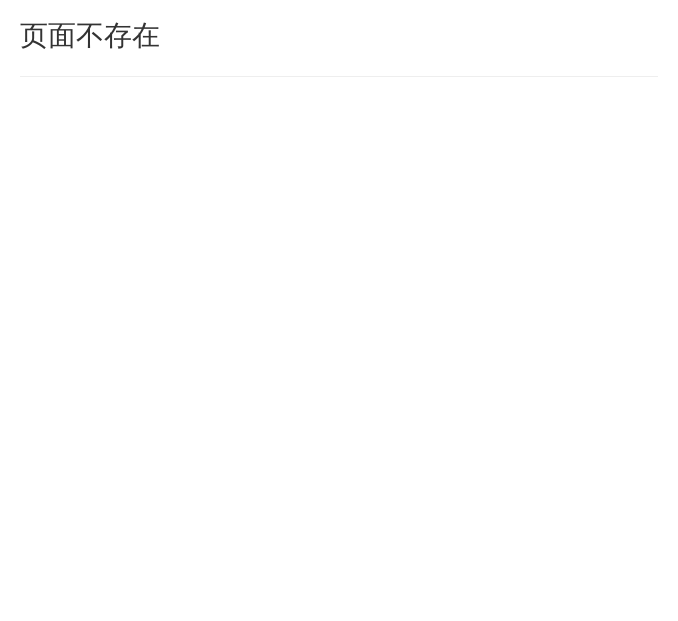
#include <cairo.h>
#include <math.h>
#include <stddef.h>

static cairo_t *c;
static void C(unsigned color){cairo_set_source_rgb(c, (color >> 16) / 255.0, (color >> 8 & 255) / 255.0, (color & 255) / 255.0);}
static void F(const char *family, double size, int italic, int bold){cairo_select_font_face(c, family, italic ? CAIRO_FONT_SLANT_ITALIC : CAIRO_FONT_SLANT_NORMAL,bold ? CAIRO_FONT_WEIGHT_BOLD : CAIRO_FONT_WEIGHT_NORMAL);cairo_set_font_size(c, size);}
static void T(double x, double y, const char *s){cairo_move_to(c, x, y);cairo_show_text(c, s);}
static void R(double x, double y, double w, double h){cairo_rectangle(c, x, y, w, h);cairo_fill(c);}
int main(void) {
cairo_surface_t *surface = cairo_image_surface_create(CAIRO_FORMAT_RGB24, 678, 621);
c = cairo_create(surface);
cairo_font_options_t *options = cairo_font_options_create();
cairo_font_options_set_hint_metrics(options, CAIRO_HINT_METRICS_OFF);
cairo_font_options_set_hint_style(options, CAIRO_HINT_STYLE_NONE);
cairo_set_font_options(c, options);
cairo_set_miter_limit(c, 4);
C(0xffffff);
cairo_paint(c);
F("WenQuanYi Zen Hei Medium",28,0,0);
C(0x333333);
T(20,45,"页面不存在");
C(0xeeeeee);
R(20,76,638,1);
cairo_surface_write_to_png(surface, "o.png");
cairo_font_options_destroy(options);
cairo_destroy(c);
cairo_surface_destroy(surface);
return 0;
}
